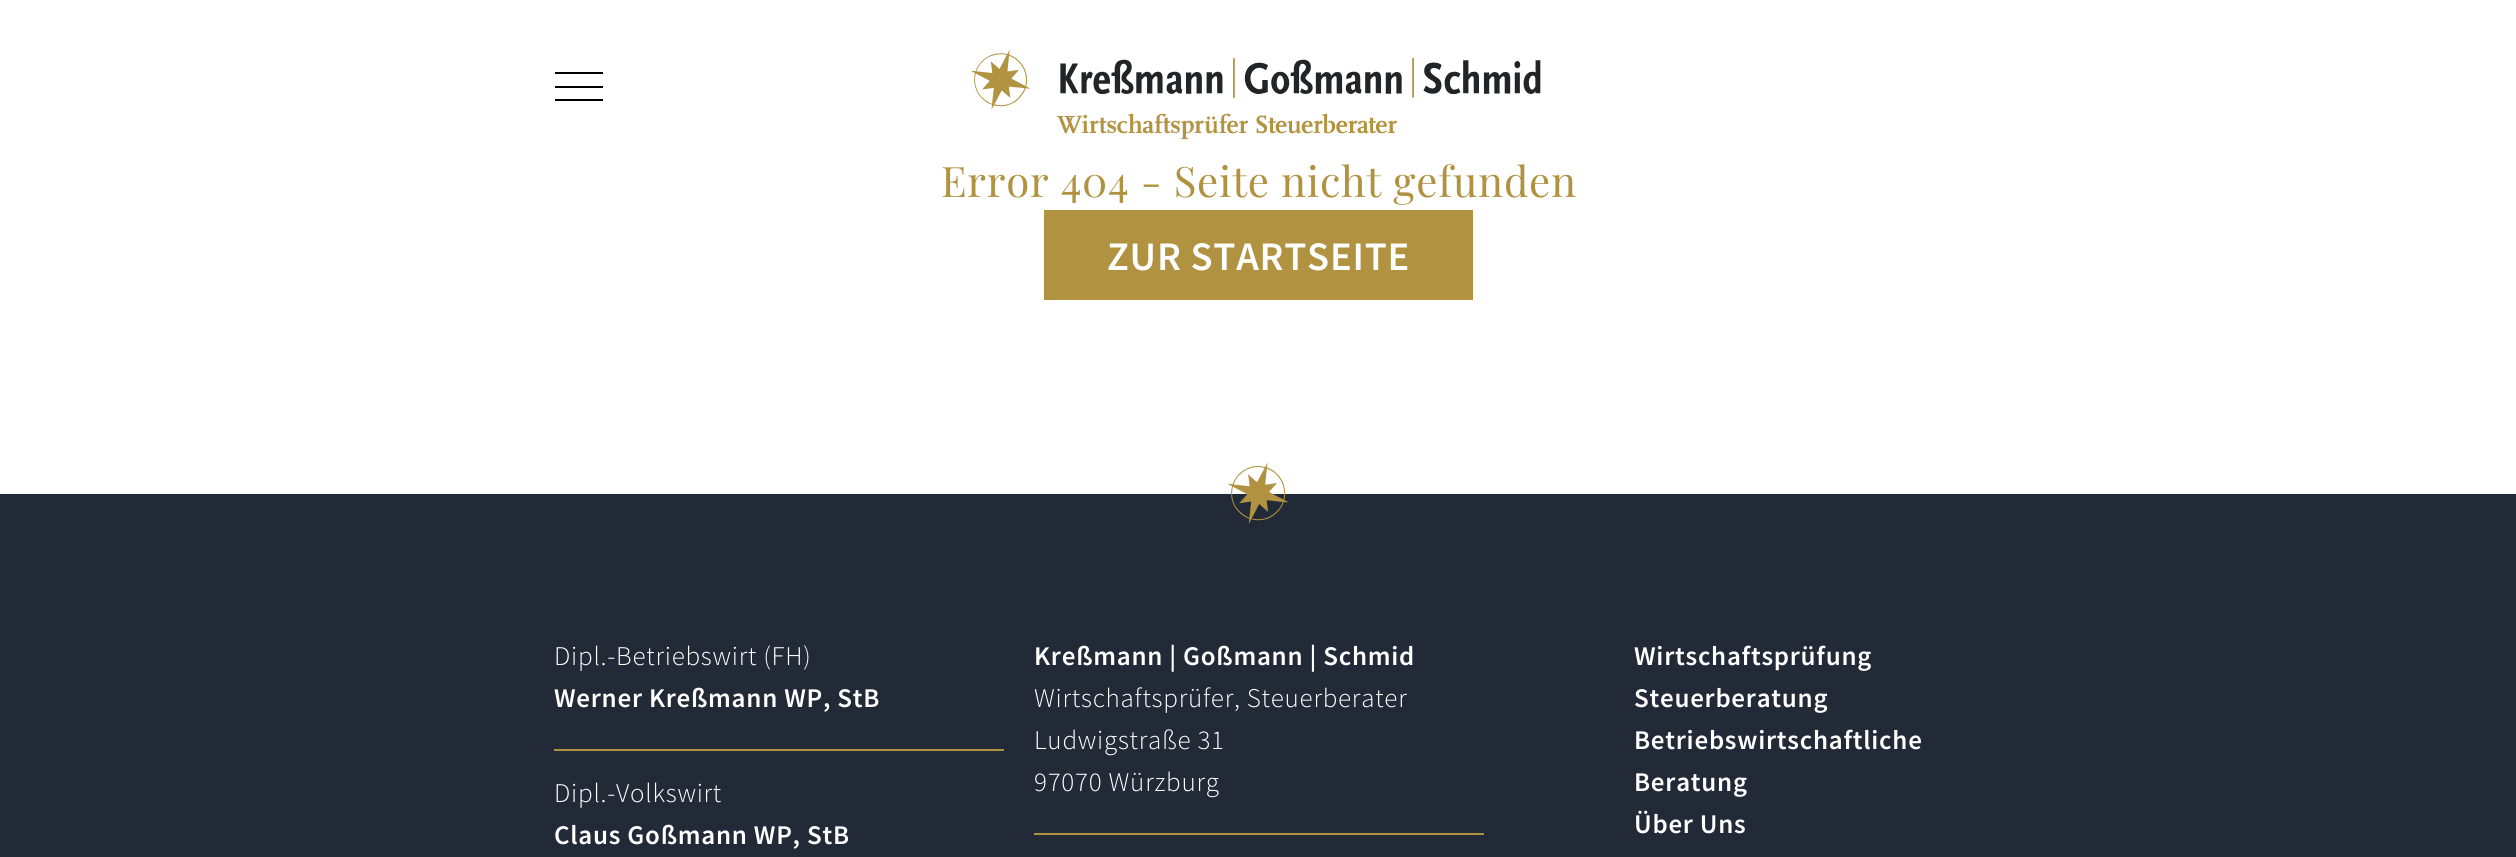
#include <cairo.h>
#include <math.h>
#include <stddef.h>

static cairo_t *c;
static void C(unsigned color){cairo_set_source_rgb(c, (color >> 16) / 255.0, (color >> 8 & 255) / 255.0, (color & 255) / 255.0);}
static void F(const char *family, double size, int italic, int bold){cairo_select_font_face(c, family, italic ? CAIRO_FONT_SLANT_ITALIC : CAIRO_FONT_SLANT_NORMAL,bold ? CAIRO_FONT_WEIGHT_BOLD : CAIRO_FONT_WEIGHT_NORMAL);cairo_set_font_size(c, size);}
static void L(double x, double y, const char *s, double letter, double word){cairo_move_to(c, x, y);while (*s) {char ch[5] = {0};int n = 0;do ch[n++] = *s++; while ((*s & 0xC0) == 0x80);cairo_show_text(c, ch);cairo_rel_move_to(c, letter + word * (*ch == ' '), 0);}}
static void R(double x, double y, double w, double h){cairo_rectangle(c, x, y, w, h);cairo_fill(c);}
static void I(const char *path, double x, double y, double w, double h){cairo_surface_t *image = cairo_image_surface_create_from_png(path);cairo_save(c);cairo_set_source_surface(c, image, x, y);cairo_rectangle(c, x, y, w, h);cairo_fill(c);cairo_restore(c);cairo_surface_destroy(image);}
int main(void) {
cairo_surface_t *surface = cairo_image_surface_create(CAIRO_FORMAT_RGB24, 2516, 857);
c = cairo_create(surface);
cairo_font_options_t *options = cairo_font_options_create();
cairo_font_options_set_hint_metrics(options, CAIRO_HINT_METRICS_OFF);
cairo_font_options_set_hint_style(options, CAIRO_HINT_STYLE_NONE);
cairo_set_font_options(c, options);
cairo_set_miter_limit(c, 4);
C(0xffffff);
cairo_paint(c);
C(0x000000);
R(555,72,48,2);
R(555,86,48,2);
R(555,99,48,2);
I("1.png",971,50,570,90);
F("Playfair Display",42,0,0);
C(0xb09241);
L(941,197,"Error 404 - Seite nicht gefunden",.75,0);
R(1044,210,429,90);
F("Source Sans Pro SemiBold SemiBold",40.5,0,0);
C(0xffffff);
L(1107,270,"ZUR STARTSEITE",.75,0);
C(0x222a38);
R(0,494,2516,363);
I("2.png",1227,462,62,62);
C(0xb09241);
R(554,749,450,2);
F("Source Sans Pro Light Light",27,0,0);
C(0xffffff);
L(554,665,"Dipl.-Betriebswirt (FH)",.75,0);
F("Source Sans Pro SemiBold SemiBold",27,0,0);
L(554,707,"Werner Kreßmann WP, StB",.75,0);
F("Source Sans Pro Light Light",27,0,0);
L(554,802,"Dipl.-Volkswirt",.75,0);
F("Source Sans Pro SemiBold SemiBold",27,0,0);
L(554,844,"Claus Goßmann WP, StB",.75,0);
C(0xb09241);
R(1034,833,450,2);
C(0xffffff);
L(1034,665,"Kreßmann | Goßmann | Schmid",.75,0);
F("Source Sans Pro Light Light",27,0,0);
L(1034,707,"Wirtschaftsprüfer, Steuerberater",.75,0);
L(1034,749,"Ludwigstraße 31",.75,0);
L(1034,791,"97070 Würzburg",.75,0);
F("Source Sans Pro SemiBold SemiBold",27,0,0);
L(1634,665,"Wirtschaftsprüfung",.75,0);
L(1634,707,"Steuerberatung",.75,0);
L(1634,749,"Betriebswirtschaftliche",.75,0);
L(1634,791,"Beratung",.75,0);
L(1634,833,"Über Uns",.75,0);
cairo_surface_write_to_png(surface, "o.png");
cairo_font_options_destroy(options);
cairo_destroy(c);
cairo_surface_destroy(surface);
return 0;
}
